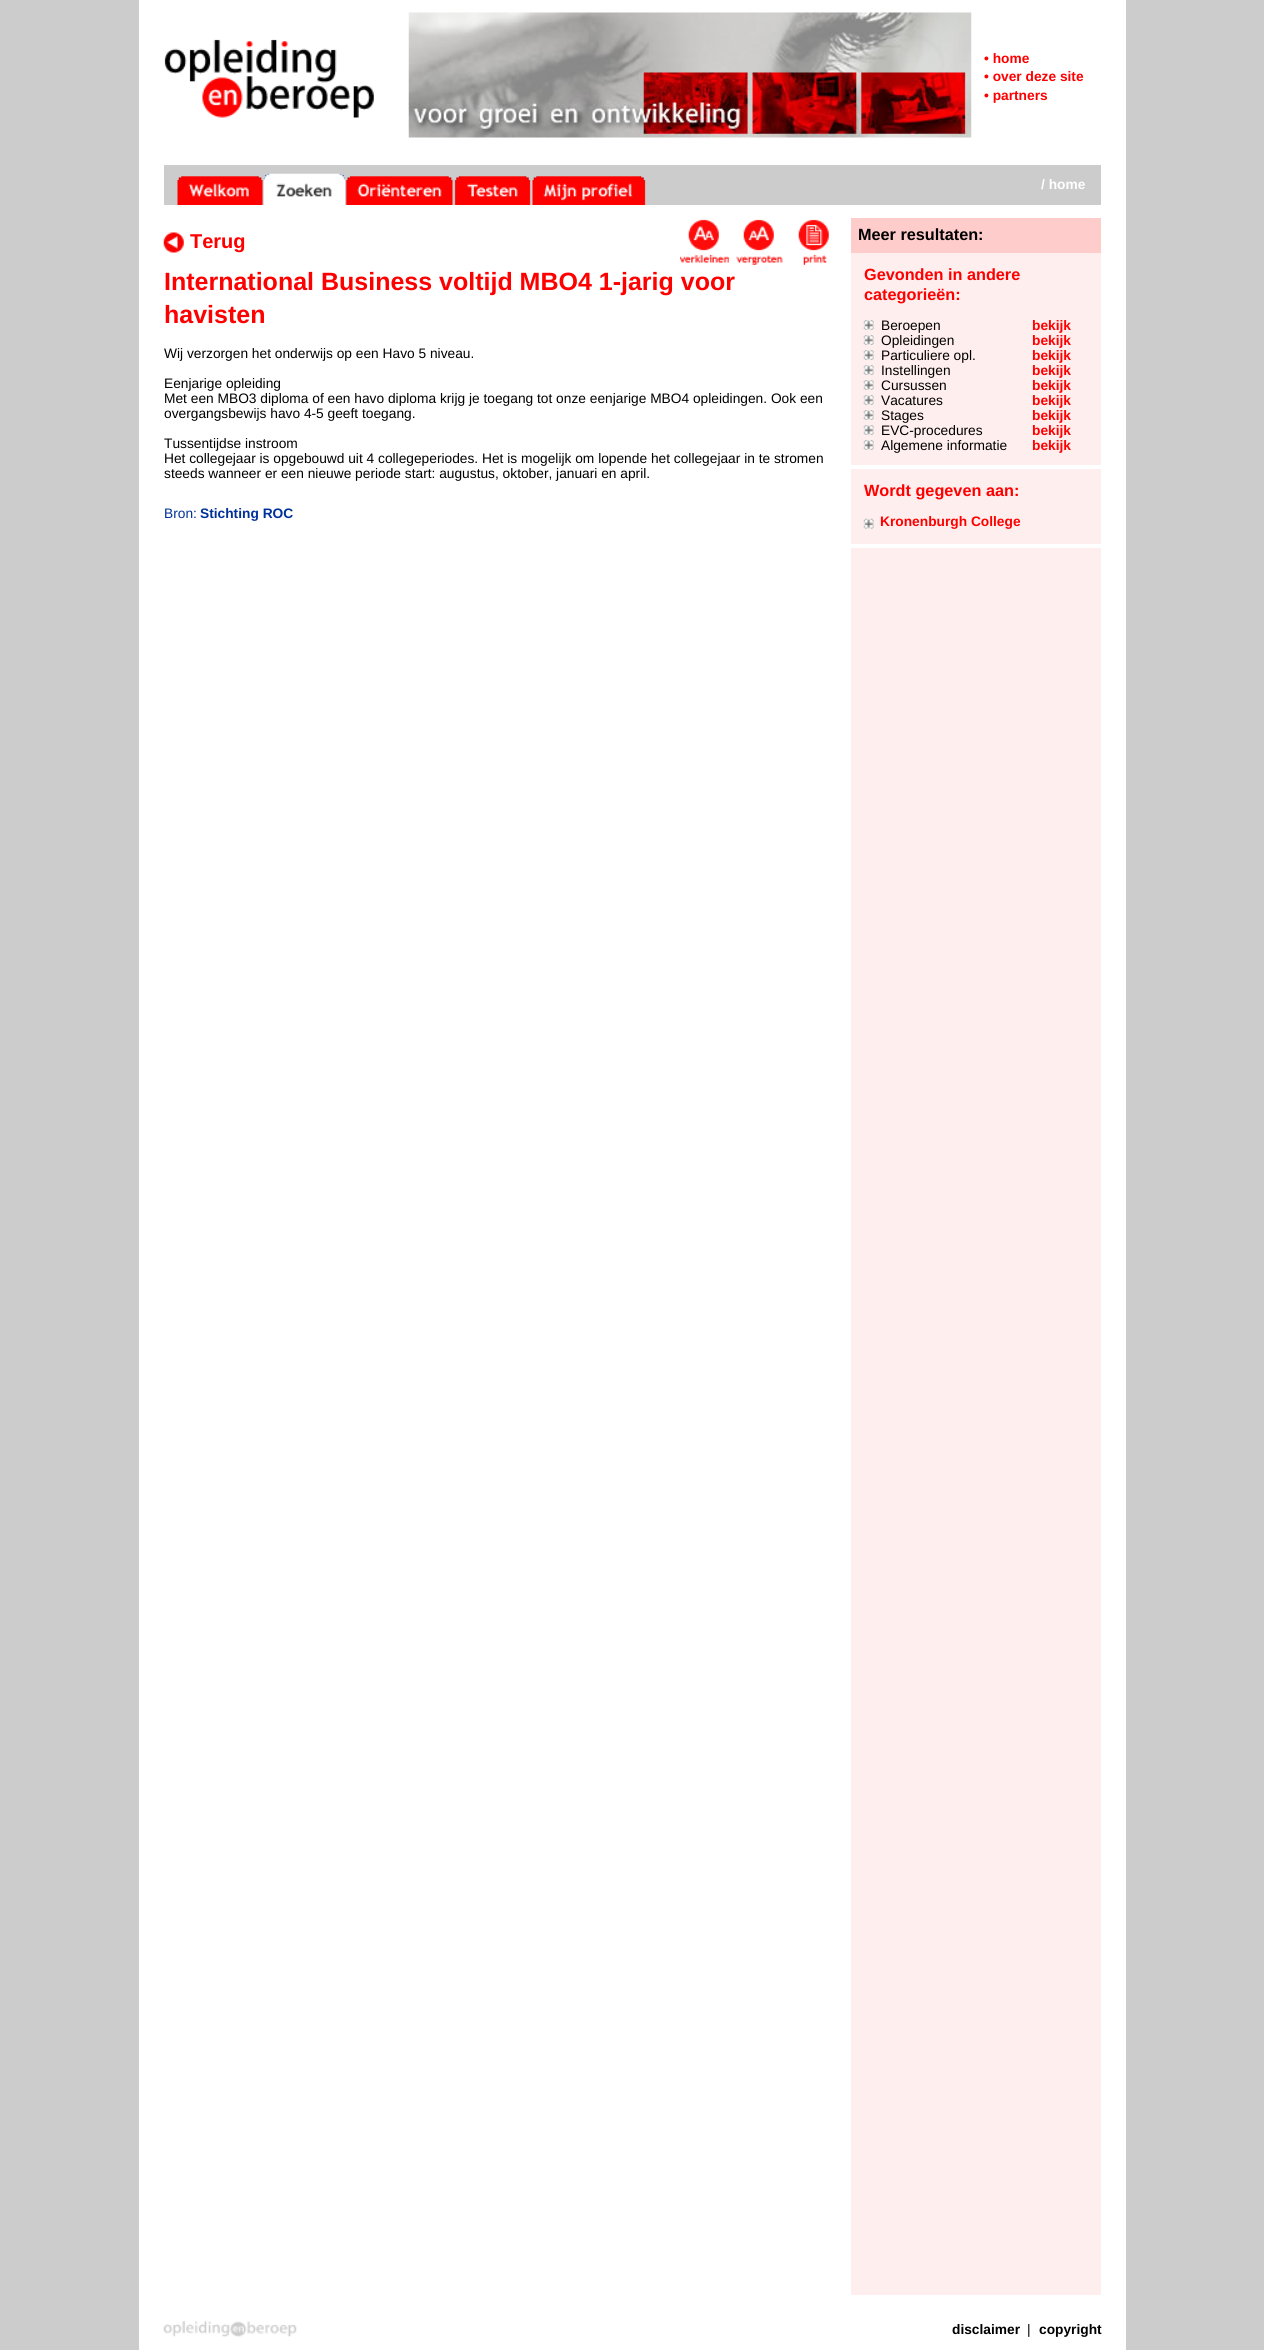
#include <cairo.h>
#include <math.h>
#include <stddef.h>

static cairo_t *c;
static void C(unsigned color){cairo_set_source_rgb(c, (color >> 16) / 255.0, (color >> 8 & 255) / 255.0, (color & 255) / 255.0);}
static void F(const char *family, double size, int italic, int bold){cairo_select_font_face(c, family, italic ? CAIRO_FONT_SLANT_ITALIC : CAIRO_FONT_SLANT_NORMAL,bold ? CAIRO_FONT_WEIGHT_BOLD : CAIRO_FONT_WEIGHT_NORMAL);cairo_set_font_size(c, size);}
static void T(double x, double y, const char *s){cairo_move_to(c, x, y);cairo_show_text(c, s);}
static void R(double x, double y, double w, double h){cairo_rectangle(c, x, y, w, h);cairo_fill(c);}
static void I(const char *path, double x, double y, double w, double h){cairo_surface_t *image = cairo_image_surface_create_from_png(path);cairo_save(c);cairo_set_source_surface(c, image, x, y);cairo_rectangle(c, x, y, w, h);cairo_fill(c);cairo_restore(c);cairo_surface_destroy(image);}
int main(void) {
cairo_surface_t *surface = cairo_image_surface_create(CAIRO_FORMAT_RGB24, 1264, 2350);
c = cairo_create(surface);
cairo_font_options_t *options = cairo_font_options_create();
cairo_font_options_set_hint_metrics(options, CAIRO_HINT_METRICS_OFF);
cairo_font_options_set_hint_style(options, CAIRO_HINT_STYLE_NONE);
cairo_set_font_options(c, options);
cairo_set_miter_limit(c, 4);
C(0xcccccc);
cairo_paint(c);
C(0xffffff);
R(139,0,987,2350);
I("1.png",164,39,210,79);
I("2.png",408,12,564,126);
F("Liberation Sans",13.75,0,1);
C(0xff0000);
T(984,63,"• home");
T(984,81,"• over deze site");
T(984,100,"• partners");
C(0xcccccc);
R(164,165,100,40);
R(264,165,81,9);
I("3.png",263,173,82,32);
R(345,165,109,40);
I("4.png",346,176,107,29);
R(454,165,77,11);
I("5.png",454,176,77,29);
R(531,165,570,40);
I("6.png",532,176,114,29);
I("7.png",177,176,86,29);
C(0xffffff);
T(1041,189,"/ home");
I("8.png",163,232,21,21);
F("Liberation Sans",20,0,1);
C(0xff0000);
T(190,248,"Terug");
I("9.png",680,219,49,44);
I("10.png",736,219,47,46);
I("11.png",798,219,31,46);
F("Liberation Sans",25,0,1);
T(164,290,"International Business voltijd MBO4 1-jarig voor");
T(164,323,"havisten");
F("Liberation Sans",13.75,0,0);
C(0x000000);
T(164,358,"Wij verzorgen het onderwijs op een Havo 5 niveau.");
T(164,388,"Eenjarige opleiding");
T(164,403,"Met een MBO3 diploma of een havo diploma krijg je toegang tot onze eenjarige MBO4 opleidingen. Ook een");
T(164,418,"overgangsbewijs havo 4-5 geeft toegang.");
T(164,448,"Tussentijdse instroom");
T(164,463,"Het collegejaar is opgebouwd uit 4 collegeperiodes. Het is mogelijk om lopende het collegejaar in te stromen");
T(164,478,"steeds wanneer er een nieuwe periode start: augustus, oktober, januari en april.");
C(0x00319a);
T(164,518,"Bron:");
F("Liberation Sans",13.75,0,1);
T(200,518,"Stichting ROC");
C(0xffeeee);
R(851,253,250,2042);
C(0xffcccc);
R(851,218,250,35);
F("Liberation Sans",16.25,0,1);
C(0x000000);
T(858,240,"Meer resultaten:");
C(0xffffff);
R(851,465,250,4);
C(0xff0000);
T(864,280,"Gevonden in andere");
T(864,300,"categorieën:");
I("12.png",863,320,11,10);
F("Liberation Sans",13.75,0,0);
C(0x000000);
T(881,330,"Beroepen");
F("Liberation Sans",13.75,0,1);
C(0xff0000);
T(1032,330,"bekijk");
I("12.png",863,335,11,10);
F("Liberation Sans",13.75,0,0);
C(0x000000);
T(881,345,"Opleidingen");
F("Liberation Sans",13.75,0,1);
C(0xff0000);
T(1032,345,"bekijk");
I("12.png",863,350,11,10);
F("Liberation Sans",13.75,0,0);
C(0x000000);
T(881,360,"Particuliere opl.");
F("Liberation Sans",13.75,0,1);
C(0xff0000);
T(1032,360,"bekijk");
I("12.png",863,365,11,10);
F("Liberation Sans",13.75,0,0);
C(0x000000);
T(881,375,"Instellingen");
F("Liberation Sans",13.75,0,1);
C(0xff0000);
T(1032,375,"bekijk");
I("12.png",863,380,11,10);
F("Liberation Sans",13.75,0,0);
C(0x000000);
T(881,390,"Cursussen");
F("Liberation Sans",13.75,0,1);
C(0xff0000);
T(1032,390,"bekijk");
I("12.png",863,395,11,10);
F("Liberation Sans",13.75,0,0);
C(0x000000);
T(881,405,"Vacatures");
F("Liberation Sans",13.75,0,1);
C(0xff0000);
T(1032,405,"bekijk");
I("12.png",863,410,11,10);
F("Liberation Sans",13.75,0,0);
C(0x000000);
T(881,420,"Stages");
F("Liberation Sans",13.75,0,1);
C(0xff0000);
T(1032,420,"bekijk");
I("12.png",863,425,11,10);
F("Liberation Sans",13.75,0,0);
C(0x000000);
T(881,435,"EVC-procedures");
F("Liberation Sans",13.75,0,1);
C(0xff0000);
T(1032,435,"bekijk");
I("12.png",863,440,11,10);
F("Liberation Sans",13.75,0,0);
C(0x000000);
T(881,450,"Algemene informatie");
F("Liberation Sans",13.75,0,1);
C(0xff0000);
T(1032,450,"bekijk");
C(0xffffff);
R(851,544,250,4);
F("Liberation Sans",16.25,0,1);
C(0xff0000);
T(864,496,"Wordt gegeven aan:");
I("13.png",863,518,11,11);
F("Liberation Sans",13.75,0,1);
T(880,526,"Kronenburgh College");
I("14.png",163,2321,134,16);
C(0x000000);
T(952,2334,"disclaimer");
F("Liberation Sans",13.75,0,0);
T(1027,2334,"|");
F("Liberation Sans",13.75,0,1);
T(1039,2334,"copyright");
cairo_surface_write_to_png(surface, "o.png");
cairo_font_options_destroy(options);
cairo_destroy(c);
cairo_surface_destroy(surface);
return 0;
}
